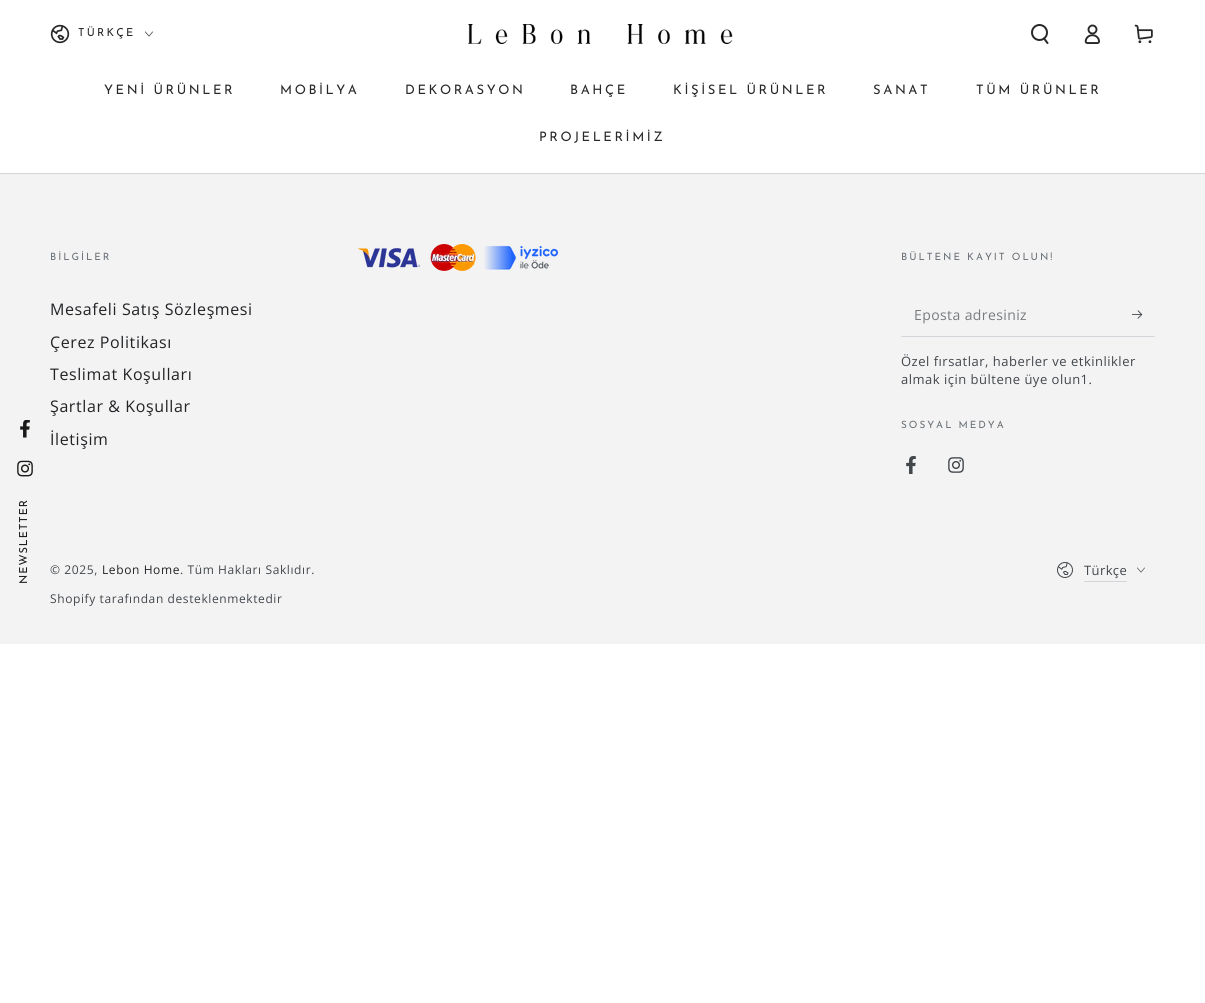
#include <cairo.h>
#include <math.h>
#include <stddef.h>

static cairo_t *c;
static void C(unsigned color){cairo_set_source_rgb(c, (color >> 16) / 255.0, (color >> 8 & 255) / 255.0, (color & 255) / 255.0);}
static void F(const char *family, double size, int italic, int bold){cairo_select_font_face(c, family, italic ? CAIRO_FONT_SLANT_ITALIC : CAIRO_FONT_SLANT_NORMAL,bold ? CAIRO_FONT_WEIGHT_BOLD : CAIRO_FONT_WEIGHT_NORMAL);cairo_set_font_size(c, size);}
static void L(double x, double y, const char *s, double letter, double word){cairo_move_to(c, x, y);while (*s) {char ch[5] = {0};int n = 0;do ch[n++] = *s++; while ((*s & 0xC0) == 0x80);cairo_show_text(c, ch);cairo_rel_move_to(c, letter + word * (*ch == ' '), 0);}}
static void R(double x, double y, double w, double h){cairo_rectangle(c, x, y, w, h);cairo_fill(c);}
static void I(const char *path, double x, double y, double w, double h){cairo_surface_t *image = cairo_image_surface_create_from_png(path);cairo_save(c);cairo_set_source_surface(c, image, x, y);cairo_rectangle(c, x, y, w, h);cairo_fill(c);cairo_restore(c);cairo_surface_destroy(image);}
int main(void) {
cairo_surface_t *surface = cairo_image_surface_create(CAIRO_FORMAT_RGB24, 1205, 1003);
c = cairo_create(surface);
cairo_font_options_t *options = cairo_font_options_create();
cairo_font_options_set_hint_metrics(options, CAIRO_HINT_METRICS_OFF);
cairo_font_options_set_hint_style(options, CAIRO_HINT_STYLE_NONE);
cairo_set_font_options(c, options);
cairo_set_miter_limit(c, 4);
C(0xffffff);
cairo_paint(c);
C(0xf3f3f3);
R(0,174,1205,470);
I("1.png",20,420,10,18);
I("2.png",17,460,16,17);
F("Josefin Sans",11,0,0);
C(0x1a1b18);
cairo_save(c);
cairo_translate(c,27,584);
cairo_rotate(c,-90 * M_PI / 180);
L(0,0,"NEWSLETTER",1,0);
cairo_restore(c);
I("3.png",50,24,20,20);
C(0x282828);
L(78,36,"TÜRKÇE",2.25,0);
I("4.png",145,31,8,6);
I("5.png",468,24,265,20);
cairo_arc(c,1039.5,32.5,7.5,0,2 * M_PI);
cairo_stroke(c);
cairo_new_path(c);
cairo_move_to(c,1044,38.5);
cairo_line_to(c,1047.5,43);
cairo_set_line_cap(c,CAIRO_LINE_CAP_ROUND);
cairo_stroke(c);
I("6.png",1084,24,16,20);
I("7.png",1134,24,19,20);
F("Josefin Sans",13,0,0);
L(104,94,"YENİ ÜRÜNLER",2.6,0);
L(280,94,"MOBİLYA",2.6,0);
L(405,94,"DEKORASYON",2.6,0);
L(570,94,"BAHÇE",2.6,0);
L(673,94,"KİŞİSEL ÜRÜNLER",2.6,0);
L(873,94,"SANAT",2.6,0);
L(976,94,"TÜM ÜRÜNLER",2.6,0);
L(539,141,"PROJELERİMİZ",2.6,0);
C(0xd2d5d9);
R(0,173,1205,1);
F("Josefin Sans",10,0,0);
C(0x6b7177);
L(50,260,"BİLGİLER",2,0);
F("Open Sans",16,0,0);
C(0x212326);
L(50,315,"Mesafeli Satış Sözleşmesi",.6,0);
L(50,348,"Çerez Politikası",.6,0);
L(50,380,"Teslimat Koşulları",.6,0);
L(50,412,"Şartlar & Koşullar",.6,0);
L(50,445,"İletişim",.6,0);
I("8.png",358,244,200,27);
F("Josefin Sans",10,0,0);
C(0x6b7177);
L(901,260,"BÜLTENE KAYIT OLUN!",2,0);
C(0xd2d5d9);
cairo_new_path(c);
cairo_move_to(c,1155,337);
cairo_line_to(c,901,337);
cairo_line_to(c,902,336);
cairo_line_to(c,1154,336);
cairo_close_path(c);
cairo_fill(c);
F("Open Sans",14,0,0);
C(0x777b7e);
L(914,320,"Eposta adresiniz",.4,0);
I("9.png",1132,310,11,9);
F("Open Sans",13,0,0);
C(0x42474c);
L(901,366,"Özel fırsatlar, haberler ve etkinlikler",.5,0);
L(901,384,"almak için bültene üye olun1.",.5,0);
F("Josefin Sans",10,0,0);
C(0x6b7177);
L(901,428,"SOSYAL MEDYA",2,0);
I("10.png",906,456,10,18);
I("11.png",948,457,16,16);
F("Open Sans",12,0,0);
C(0x42474c);
L(50,574,"© 2025,",.6,0);
C(0x212326);
L(102,574,"Lebon Home",.6,0);
C(0x42474c);
L(180,574,". Tüm Hakları Saklıdır.",.6,0);
L(50,603,"Shopify tarafından desteklenmektedir",.6,0);
I("12.png",1057,562,16,16);
C(0xd2d5d9);
R(1084,581,43,1);
F("Open Sans",13,0,0);
C(0x42474c);
L(1084,575,"Türkçe",.4,0);
I("13.png",1137,567,8,6);
cairo_surface_write_to_png(surface, "o.png");
cairo_font_options_destroy(options);
cairo_destroy(c);
cairo_surface_destroy(surface);
return 0;
}
